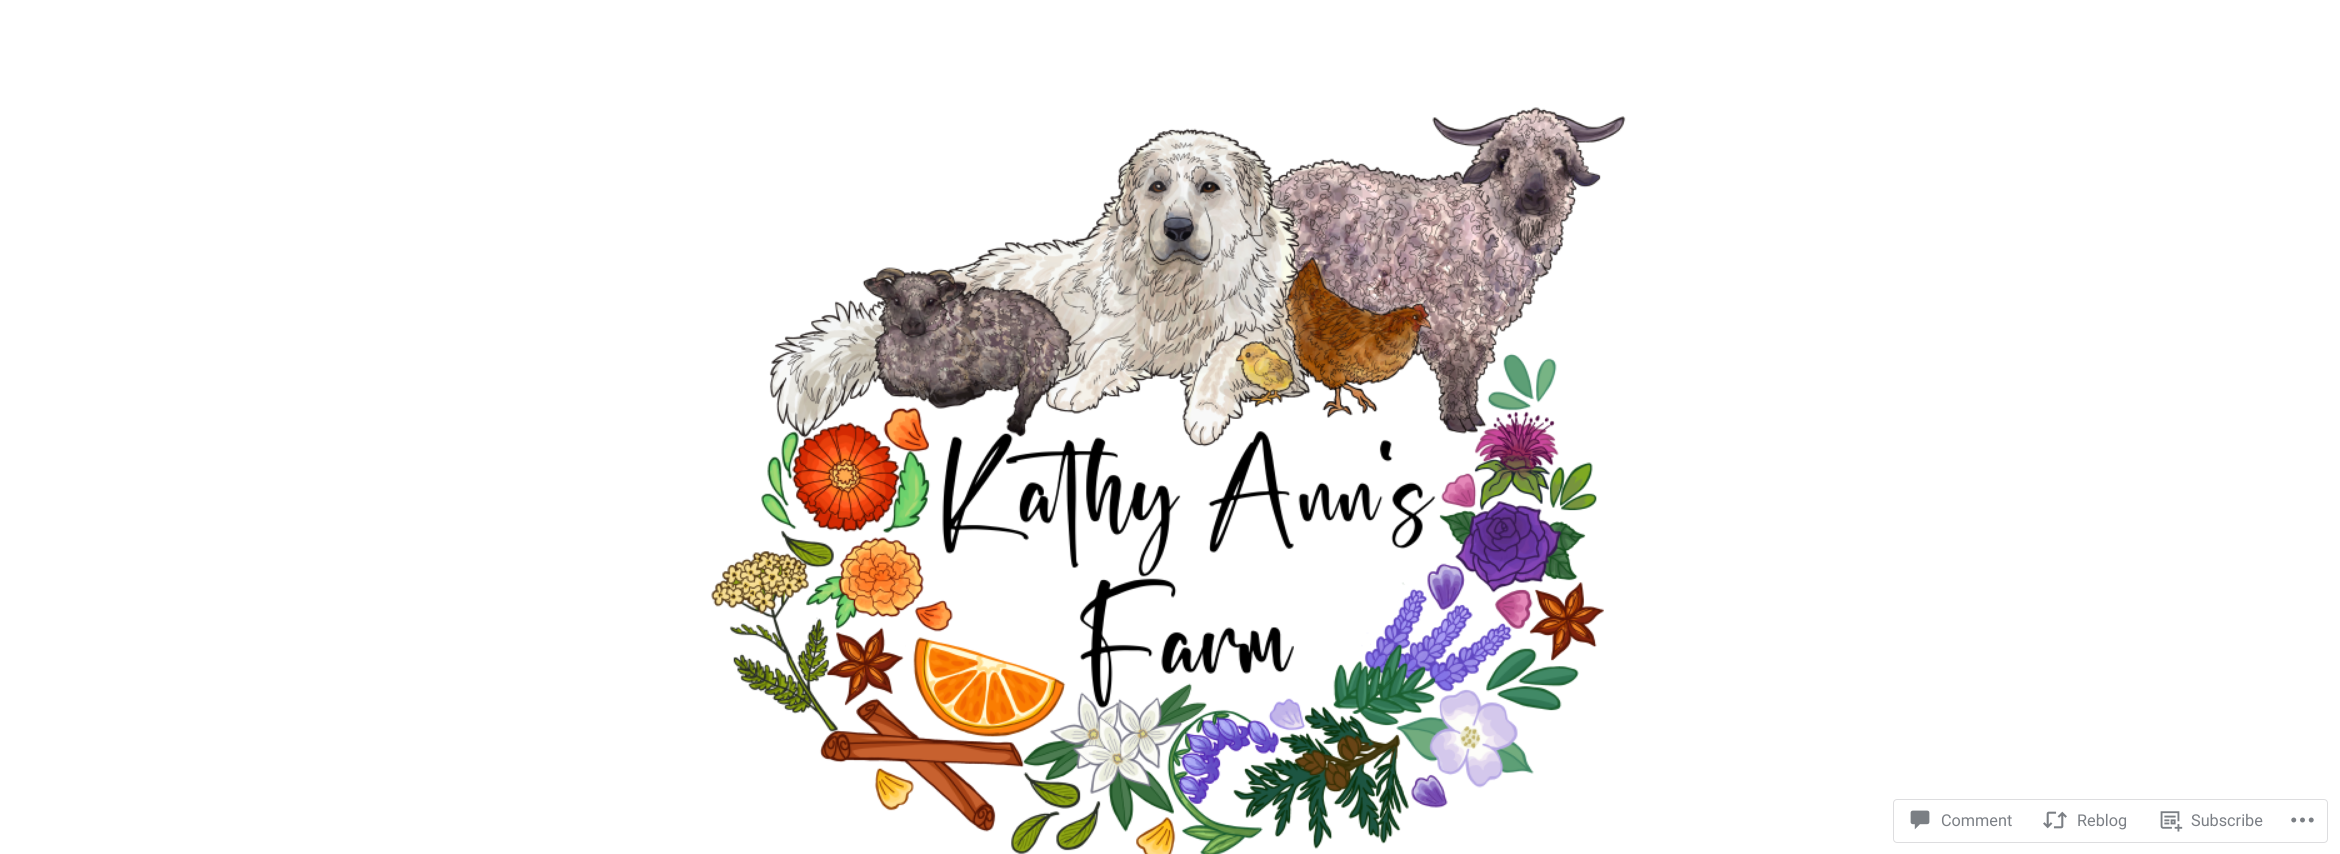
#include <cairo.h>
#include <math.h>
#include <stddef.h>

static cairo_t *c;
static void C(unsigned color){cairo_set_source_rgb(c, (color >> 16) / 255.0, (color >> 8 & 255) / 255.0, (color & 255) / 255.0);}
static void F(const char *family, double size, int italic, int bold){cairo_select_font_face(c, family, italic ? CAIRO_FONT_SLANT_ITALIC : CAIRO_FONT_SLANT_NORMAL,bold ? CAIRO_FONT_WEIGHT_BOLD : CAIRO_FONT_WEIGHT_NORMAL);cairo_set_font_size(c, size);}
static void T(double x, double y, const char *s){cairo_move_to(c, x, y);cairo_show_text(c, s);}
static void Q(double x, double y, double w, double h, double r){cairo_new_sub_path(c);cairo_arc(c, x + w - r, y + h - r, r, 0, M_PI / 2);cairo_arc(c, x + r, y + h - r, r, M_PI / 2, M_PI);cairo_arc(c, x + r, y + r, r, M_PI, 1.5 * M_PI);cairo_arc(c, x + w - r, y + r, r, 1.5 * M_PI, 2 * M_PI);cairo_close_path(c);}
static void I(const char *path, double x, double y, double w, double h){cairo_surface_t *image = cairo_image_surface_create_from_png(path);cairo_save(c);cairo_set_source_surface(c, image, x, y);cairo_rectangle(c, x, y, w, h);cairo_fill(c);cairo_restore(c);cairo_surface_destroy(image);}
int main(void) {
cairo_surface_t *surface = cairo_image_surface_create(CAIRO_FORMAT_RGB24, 2340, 854);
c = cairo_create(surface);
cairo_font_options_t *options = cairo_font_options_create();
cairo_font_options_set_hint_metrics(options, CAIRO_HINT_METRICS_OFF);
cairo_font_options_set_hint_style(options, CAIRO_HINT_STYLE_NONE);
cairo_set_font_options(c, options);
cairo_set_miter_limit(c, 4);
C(0xffffff);
cairo_paint(c);
I("1.png",711,107,915,747);
Q(1893.5,799.5,434,43,3.5);
C(0xdddddf);
cairo_set_line_width(c,1);
cairo_stroke(c);
I("2.png",1910,810,20,20);
F("Roboto",16.25,0,0);
C(0x7b7f85);
T(1941,826,"Comment");
I("3.png",2043,811,24,18);
T(2077,826,"Reblog");
I("4.png",2160,811,23,21);
T(2191,826,"Subscribe");
I("5.png",2291,817,23,6);
cairo_surface_write_to_png(surface, "o.png");
cairo_font_options_destroy(options);
cairo_destroy(c);
cairo_surface_destroy(surface);
return 0;
}
